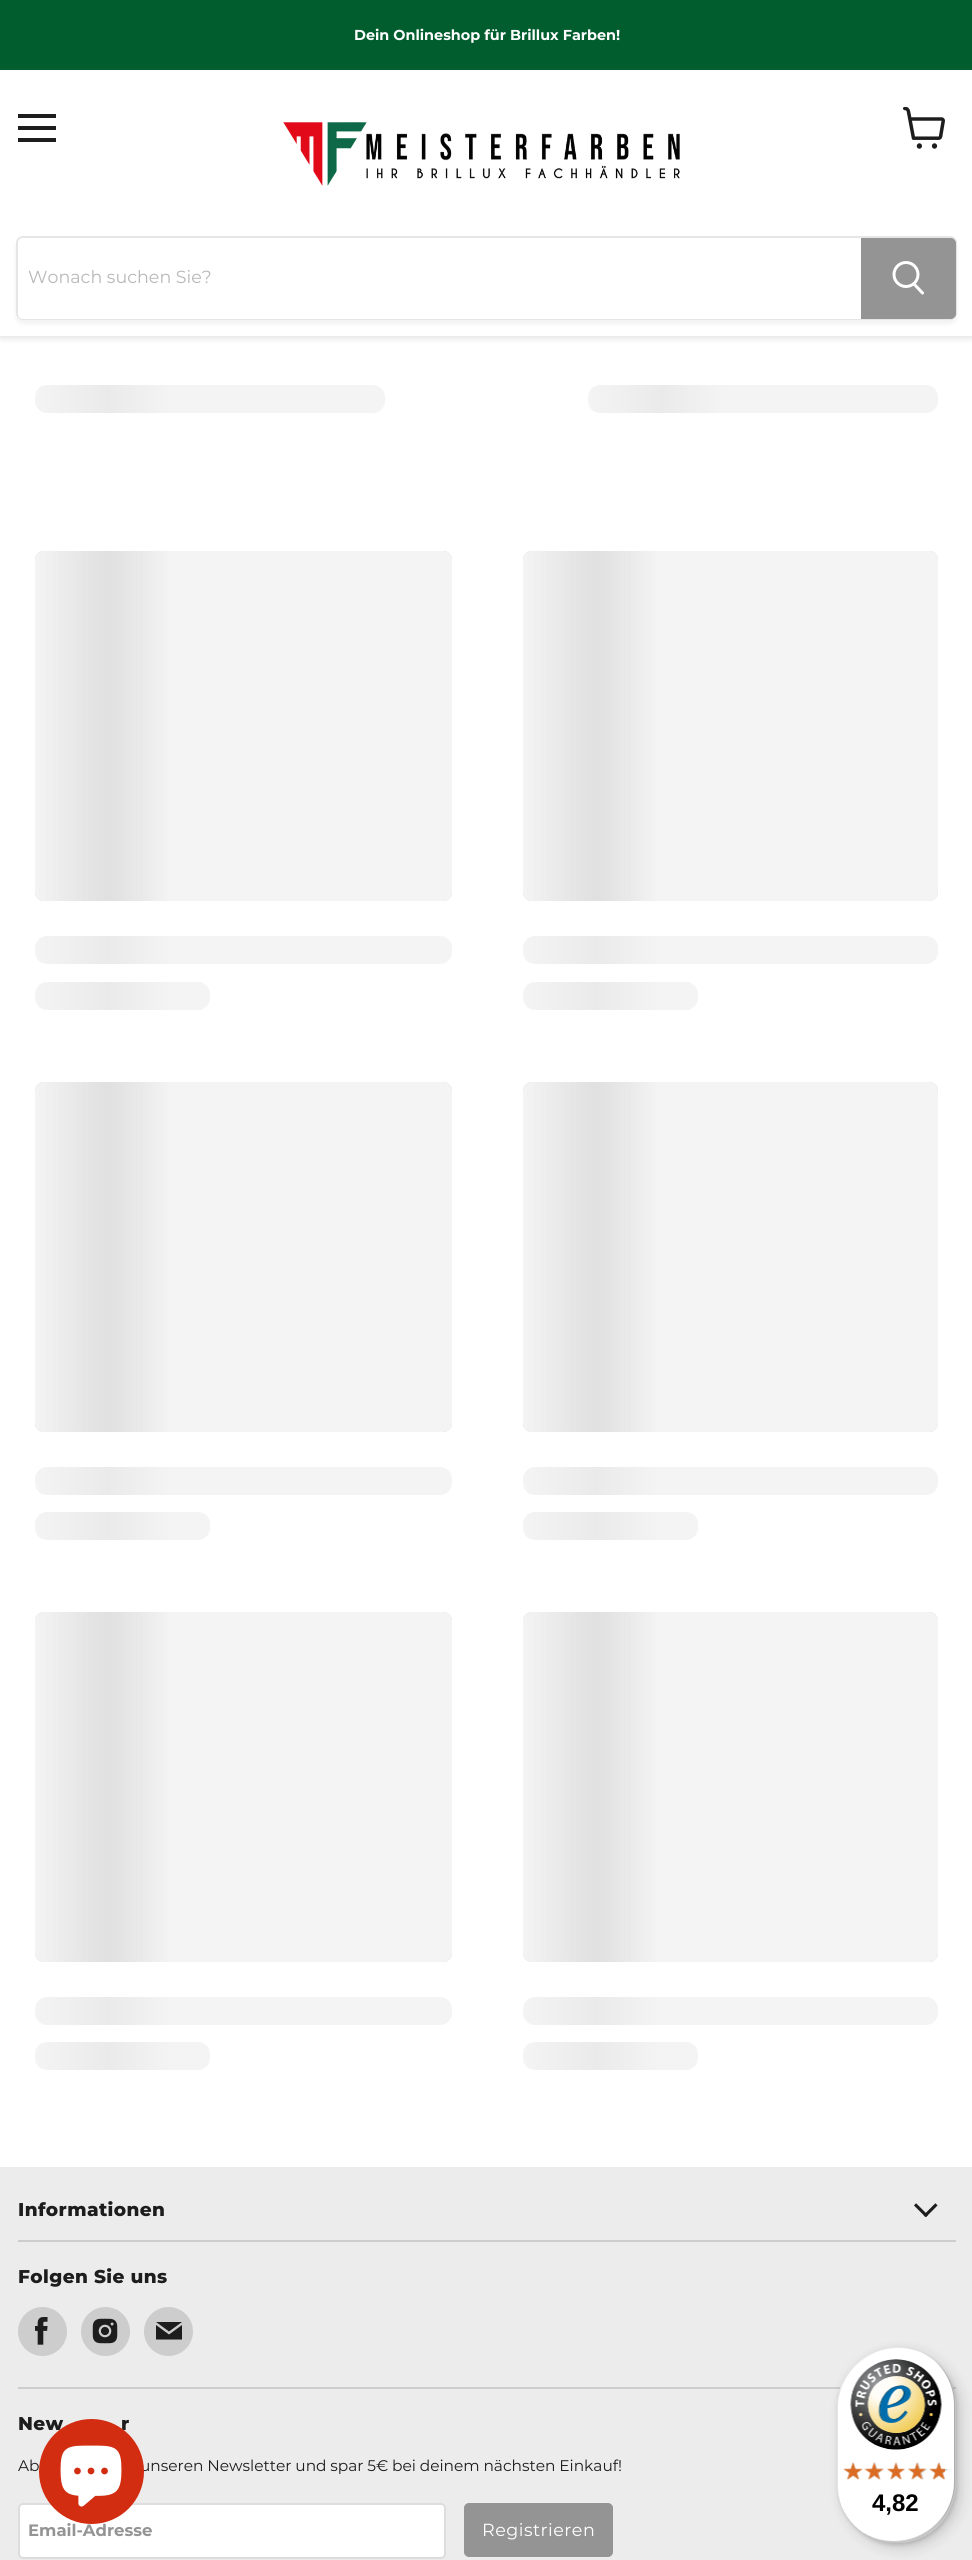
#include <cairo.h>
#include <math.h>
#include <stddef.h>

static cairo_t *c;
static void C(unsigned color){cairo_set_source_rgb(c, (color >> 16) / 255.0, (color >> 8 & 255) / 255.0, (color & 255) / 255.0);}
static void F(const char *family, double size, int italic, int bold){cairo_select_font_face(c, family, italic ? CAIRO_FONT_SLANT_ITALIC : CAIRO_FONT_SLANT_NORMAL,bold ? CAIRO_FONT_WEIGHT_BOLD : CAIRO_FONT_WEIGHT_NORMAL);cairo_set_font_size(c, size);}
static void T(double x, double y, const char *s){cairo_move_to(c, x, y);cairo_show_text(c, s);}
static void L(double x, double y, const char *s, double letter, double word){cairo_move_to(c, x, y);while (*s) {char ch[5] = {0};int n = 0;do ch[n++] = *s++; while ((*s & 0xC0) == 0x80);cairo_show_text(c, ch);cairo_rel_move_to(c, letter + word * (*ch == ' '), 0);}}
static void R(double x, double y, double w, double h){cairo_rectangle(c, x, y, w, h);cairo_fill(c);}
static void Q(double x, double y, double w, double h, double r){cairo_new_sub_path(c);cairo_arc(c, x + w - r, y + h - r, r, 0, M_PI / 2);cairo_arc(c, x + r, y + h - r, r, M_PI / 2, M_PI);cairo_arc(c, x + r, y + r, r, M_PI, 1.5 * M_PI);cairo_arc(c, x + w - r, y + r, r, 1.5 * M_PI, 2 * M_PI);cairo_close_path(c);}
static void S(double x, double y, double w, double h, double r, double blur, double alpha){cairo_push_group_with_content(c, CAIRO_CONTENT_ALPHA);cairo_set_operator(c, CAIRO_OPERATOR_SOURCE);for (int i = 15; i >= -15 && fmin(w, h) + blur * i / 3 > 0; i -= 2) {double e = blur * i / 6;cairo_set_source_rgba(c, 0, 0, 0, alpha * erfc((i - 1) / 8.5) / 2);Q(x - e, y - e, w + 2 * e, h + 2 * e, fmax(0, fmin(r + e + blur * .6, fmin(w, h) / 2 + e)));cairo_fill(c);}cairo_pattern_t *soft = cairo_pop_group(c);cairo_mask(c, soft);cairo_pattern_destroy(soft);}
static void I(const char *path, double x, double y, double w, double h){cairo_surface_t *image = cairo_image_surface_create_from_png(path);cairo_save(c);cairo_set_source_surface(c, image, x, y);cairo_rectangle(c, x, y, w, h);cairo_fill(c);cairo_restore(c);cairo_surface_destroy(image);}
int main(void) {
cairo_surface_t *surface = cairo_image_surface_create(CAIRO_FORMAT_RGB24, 972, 2560);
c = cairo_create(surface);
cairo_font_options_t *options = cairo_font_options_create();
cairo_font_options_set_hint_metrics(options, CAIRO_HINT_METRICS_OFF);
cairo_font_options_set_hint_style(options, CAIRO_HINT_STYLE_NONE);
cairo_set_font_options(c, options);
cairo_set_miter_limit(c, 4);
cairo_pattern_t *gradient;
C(0xffffff);
cairo_paint(c);
C(0x015d2e);
R(0,0,972,70);
F("Montserrat",14.4,0,1);
C(0xffffff);
T(354,40,"Dein Onlineshop für Brillux Farben!");
C(0x808080);
S(0,72,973,266,0,3.5,.25);
C(0xffffff);
R(0,70,972,266);
C(0x1d1d1d);
R(18,114,38,4);
R(18,126,38,4);
R(18,138,38,4);
I("1.png",903,107,42,42);
I("2.png",283,122,397,64);
C(0x808080);
S(16,240,941,84,7,2.5,.11);
Q(17,237,939,82,6);
C(0xe6e6e6);
cairo_stroke(c);
C(0xffffff);
cairo_new_path(c);
cairo_move_to(c,23,238);
cairo_line_to(c,861,238);
cairo_line_to(c,861,319);
cairo_line_to(c,23,319);
cairo_curve_to(c,20,319,18,317,18,314);
cairo_line_to(c,18,243);
cairo_curve_to(c,18,240,20,238,23,238);
cairo_close_path(c);
cairo_fill(c);
F("Montserrat",17.5,0,0);
C(0xb8b8b8);
T(28,283,"Wonach suchen Sie?");
C(0x949494);
cairo_new_path(c);
cairo_move_to(c,862,239);
cairo_line_to(c,951,239);
cairo_curve_to(c,953,239,955,241,955,243);
cairo_line_to(c,955,314);
cairo_curve_to(c,955,316,953,318,951,318);
cairo_line_to(c,862,318);
cairo_close_path(c);
cairo_fill_preserve(c);
cairo_stroke(c);
cairo_new_path(c);
cairo_move_to(c,922.5,293);
cairo_line_to(c,914.5,284.5);
C(0xffffff);
cairo_set_line_width(c,3);
cairo_set_line_cap(c,CAIRO_LINE_CAP_ROUND);
cairo_stroke(c);
cairo_arc(c,906,274.5,12,0,2 * M_PI);
cairo_set_line_cap(c,CAIRO_LINE_CAP_BUTT);
cairo_stroke(c);
gradient = cairo_pattern_create_linear(35,399,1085,399);
cairo_pattern_add_color_stop_rgba(gradient,0,0.957,0.957,0.957,1);
cairo_pattern_add_color_stop_rgba(gradient,.07,0.918,0.918,0.918,1);
cairo_pattern_add_color_stop_rgba(gradient,.13,0.957,0.957,0.957,1);
cairo_set_source(c,gradient);
cairo_pattern_destroy(gradient);
Q(35,385,350,28,12);
cairo_fill(c);
gradient = cairo_pattern_create_linear(588,399,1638,399);
cairo_pattern_add_color_stop_rgba(gradient,0,0.957,0.957,0.957,1);
cairo_pattern_add_color_stop_rgba(gradient,.07,0.918,0.918,0.918,1);
cairo_pattern_add_color_stop_rgba(gradient,.13,0.957,0.957,0.957,1);
cairo_set_source(c,gradient);
cairo_pattern_destroy(gradient);
Q(588,385,350,28,12);
cairo_fill(c);
C(0xcccccc);
Q(35,551,417,350,9);
cairo_fill(c);
gradient = cairo_pattern_create_linear(35,726,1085,726);
cairo_pattern_add_color_stop_rgba(gradient,0,0.957,0.957,0.957,1);
cairo_pattern_add_color_stop_rgba(gradient,.07,0.898,0.898,0.898,.8);
cairo_pattern_add_color_stop_rgba(gradient,.13,0.957,0.957,0.957,1);
cairo_set_source(c,gradient);
cairo_pattern_destroy(gradient);
Q(35,551,417,350,9);
cairo_fill(c);
gradient = cairo_pattern_create_linear(35,950,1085,950);
cairo_pattern_add_color_stop_rgba(gradient,0,0.957,0.957,0.957,1);
cairo_pattern_add_color_stop_rgba(gradient,.07,0.918,0.918,0.918,1);
cairo_pattern_add_color_stop_rgba(gradient,.13,0.957,0.957,0.957,1);
cairo_set_source(c,gradient);
cairo_pattern_destroy(gradient);
Q(35,936,417,28,12);
cairo_fill(c);
gradient = cairo_pattern_create_linear(35,996,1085,996);
cairo_pattern_add_color_stop_rgba(gradient,0,0.957,0.957,0.957,1);
cairo_pattern_add_color_stop_rgba(gradient,.07,0.918,0.918,0.918,1);
cairo_pattern_add_color_stop_rgba(gradient,.13,0.957,0.957,0.957,1);
cairo_set_source(c,gradient);
cairo_pattern_destroy(gradient);
Q(35,982,175,28,12);
cairo_fill(c);
C(0xcccccc);
Q(523,551,415,350,9);
cairo_fill(c);
gradient = cairo_pattern_create_linear(523,726,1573,726);
cairo_pattern_add_color_stop_rgba(gradient,0,0.957,0.957,0.957,1);
cairo_pattern_add_color_stop_rgba(gradient,.07,0.898,0.898,0.898,.8);
cairo_pattern_add_color_stop_rgba(gradient,.13,0.957,0.957,0.957,1);
cairo_set_source(c,gradient);
cairo_pattern_destroy(gradient);
Q(523,551,415,350,9);
cairo_fill(c);
gradient = cairo_pattern_create_linear(523,950,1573,950);
cairo_pattern_add_color_stop_rgba(gradient,0,0.957,0.957,0.957,1);
cairo_pattern_add_color_stop_rgba(gradient,.07,0.918,0.918,0.918,1);
cairo_pattern_add_color_stop_rgba(gradient,.13,0.957,0.957,0.957,1);
cairo_set_source(c,gradient);
cairo_pattern_destroy(gradient);
Q(523,936,415,28,12);
cairo_fill(c);
gradient = cairo_pattern_create_linear(523,996,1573,996);
cairo_pattern_add_color_stop_rgba(gradient,0,0.957,0.957,0.957,1);
cairo_pattern_add_color_stop_rgba(gradient,.07,0.918,0.918,0.918,1);
cairo_pattern_add_color_stop_rgba(gradient,.13,0.957,0.957,0.957,1);
cairo_set_source(c,gradient);
cairo_pattern_destroy(gradient);
Q(523,982,175,28,12);
cairo_fill(c);
C(0xcccccc);
Q(35,1082,417,350,9);
cairo_fill(c);
gradient = cairo_pattern_create_linear(35,1257,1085,1257);
cairo_pattern_add_color_stop_rgba(gradient,0,0.957,0.957,0.957,1);
cairo_pattern_add_color_stop_rgba(gradient,.07,0.898,0.898,0.898,.8);
cairo_pattern_add_color_stop_rgba(gradient,.13,0.957,0.957,0.957,1);
cairo_set_source(c,gradient);
cairo_pattern_destroy(gradient);
Q(35,1082,417,350,9);
cairo_fill(c);
gradient = cairo_pattern_create_linear(35,1481,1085,1481);
cairo_pattern_add_color_stop_rgba(gradient,0,0.957,0.957,0.957,1);
cairo_pattern_add_color_stop_rgba(gradient,.07,0.918,0.918,0.918,1);
cairo_pattern_add_color_stop_rgba(gradient,.13,0.957,0.957,0.957,1);
cairo_set_source(c,gradient);
cairo_pattern_destroy(gradient);
Q(35,1467,417,28,12);
cairo_fill(c);
gradient = cairo_pattern_create_linear(35,1526,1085,1526);
cairo_pattern_add_color_stop_rgba(gradient,0,0.957,0.957,0.957,1);
cairo_pattern_add_color_stop_rgba(gradient,.07,0.918,0.918,0.918,1);
cairo_pattern_add_color_stop_rgba(gradient,.13,0.957,0.957,0.957,1);
cairo_set_source(c,gradient);
cairo_pattern_destroy(gradient);
Q(35,1512,175,28,12);
cairo_fill(c);
C(0xcccccc);
Q(523,1082,415,350,9);
cairo_fill(c);
gradient = cairo_pattern_create_linear(523,1257,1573,1257);
cairo_pattern_add_color_stop_rgba(gradient,0,0.957,0.957,0.957,1);
cairo_pattern_add_color_stop_rgba(gradient,.07,0.898,0.898,0.898,.8);
cairo_pattern_add_color_stop_rgba(gradient,.13,0.957,0.957,0.957,1);
cairo_set_source(c,gradient);
cairo_pattern_destroy(gradient);
Q(523,1082,415,350,9);
cairo_fill(c);
gradient = cairo_pattern_create_linear(523,1481,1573,1481);
cairo_pattern_add_color_stop_rgba(gradient,0,0.957,0.957,0.957,1);
cairo_pattern_add_color_stop_rgba(gradient,.07,0.918,0.918,0.918,1);
cairo_pattern_add_color_stop_rgba(gradient,.13,0.957,0.957,0.957,1);
cairo_set_source(c,gradient);
cairo_pattern_destroy(gradient);
Q(523,1467,415,28,12);
cairo_fill(c);
gradient = cairo_pattern_create_linear(523,1526,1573,1526);
cairo_pattern_add_color_stop_rgba(gradient,0,0.957,0.957,0.957,1);
cairo_pattern_add_color_stop_rgba(gradient,.07,0.918,0.918,0.918,1);
cairo_pattern_add_color_stop_rgba(gradient,.13,0.957,0.957,0.957,1);
cairo_set_source(c,gradient);
cairo_pattern_destroy(gradient);
Q(523,1512,175,28,12);
cairo_fill(c);
C(0xcccccc);
Q(35,1612,417,350,9);
cairo_fill(c);
gradient = cairo_pattern_create_linear(35,1787,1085,1787);
cairo_pattern_add_color_stop_rgba(gradient,0,0.957,0.957,0.957,1);
cairo_pattern_add_color_stop_rgba(gradient,.07,0.898,0.898,0.898,.8);
cairo_pattern_add_color_stop_rgba(gradient,.13,0.957,0.957,0.957,1);
cairo_set_source(c,gradient);
cairo_pattern_destroy(gradient);
Q(35,1612,417,350,9);
cairo_fill(c);
gradient = cairo_pattern_create_linear(35,2011,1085,2011);
cairo_pattern_add_color_stop_rgba(gradient,0,0.957,0.957,0.957,1);
cairo_pattern_add_color_stop_rgba(gradient,.07,0.918,0.918,0.918,1);
cairo_pattern_add_color_stop_rgba(gradient,.13,0.957,0.957,0.957,1);
cairo_set_source(c,gradient);
cairo_pattern_destroy(gradient);
Q(35,1997,417,28,12);
cairo_fill(c);
gradient = cairo_pattern_create_linear(35,2056,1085,2056);
cairo_pattern_add_color_stop_rgba(gradient,0,0.957,0.957,0.957,1);
cairo_pattern_add_color_stop_rgba(gradient,.07,0.918,0.918,0.918,1);
cairo_pattern_add_color_stop_rgba(gradient,.13,0.957,0.957,0.957,1);
cairo_set_source(c,gradient);
cairo_pattern_destroy(gradient);
Q(35,2042,175,28,12);
cairo_fill(c);
C(0xcccccc);
Q(523,1612,415,350,9);
cairo_fill(c);
gradient = cairo_pattern_create_linear(523,1787,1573,1787);
cairo_pattern_add_color_stop_rgba(gradient,0,0.957,0.957,0.957,1);
cairo_pattern_add_color_stop_rgba(gradient,.07,0.898,0.898,0.898,.8);
cairo_pattern_add_color_stop_rgba(gradient,.13,0.957,0.957,0.957,1);
cairo_set_source(c,gradient);
cairo_pattern_destroy(gradient);
Q(523,1612,415,350,9);
cairo_fill(c);
gradient = cairo_pattern_create_linear(523,2011,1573,2011);
cairo_pattern_add_color_stop_rgba(gradient,0,0.957,0.957,0.957,1);
cairo_pattern_add_color_stop_rgba(gradient,.07,0.918,0.918,0.918,1);
cairo_pattern_add_color_stop_rgba(gradient,.13,0.957,0.957,0.957,1);
cairo_set_source(c,gradient);
cairo_pattern_destroy(gradient);
Q(523,1997,415,28,12);
cairo_fill(c);
gradient = cairo_pattern_create_linear(523,2056,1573,2056);
cairo_pattern_add_color_stop_rgba(gradient,0,0.957,0.957,0.957,1);
cairo_pattern_add_color_stop_rgba(gradient,.07,0.918,0.918,0.918,1);
cairo_pattern_add_color_stop_rgba(gradient,.13,0.957,0.957,0.957,1);
cairo_set_source(c,gradient);
cairo_pattern_destroy(gradient);
Q(523,2042,175,28,12);
cairo_fill(c);
C(0xececec);
R(0,2167,972,393);
C(0xcdcdcd);
R(18,2240,938,2);
F("Montserrat ExtraBold",18.5,0,0);
C(0x1d1d1d);
L(18,2216,"Informationen",.4,0);
I("3.png",914,2203,24,14);
C(0xcdcdcd);
R(18,2387,938,2);
C(0x1d1d1d);
L(18,2283,"Folgen Sie uns",.4,0);
C(0xcdcdcd);
cairo_new_path(c);
cairo_arc(c,42.5,2331.5,24.5,0,2 * M_PI);
cairo_fill(c);
I("4.png",35,2317,13,28);
cairo_arc(c,105.5,2331.5,24.5,0,2 * M_PI);
cairo_fill(c);
I("5.png",92,2318,26,26);
cairo_arc(c,168.5,2331.5,24.5,0,2 * M_PI);
cairo_fill(c);
C(0x1d1d1d);
cairo_set_fill_rule(c,CAIRO_FILL_RULE_EVEN_ODD);
cairo_new_path(c);
cairo_move_to(c,182,2322);
cairo_line_to(c,156,2322);
cairo_line_to(c,169,2331.5);
cairo_close_path(c);
cairo_move_to(c,169,2334.5);
cairo_line_to(c,156,2325);
cairo_line_to(c,156,2339.5);
cairo_line_to(c,182,2339.5);
cairo_line_to(c,182,2325);
cairo_close_path(c);
cairo_fill(c);
L(18,2430,"New",.4,0);
L(121,2430,"r",.4,0);
F("Montserrat",15.4,0,0);
L(18,2471,"Ab",0,-.25);
L(140,2471,"unseren Newsletter und spar 5€ bei deinem nächsten Einkauf!",0,-.25);
C(0xffffff);
Q(19,2504,426,54,4);
cairo_fill_preserve(c);
C(0xdddddd);
cairo_set_line_width(c,2);
cairo_stroke(c);
F("Montserrat",16.5,0,1);
C(0x949494);
T(28,2536,"Email-Adresse");
Q(465,2504,147,52,4);
cairo_fill_preserve(c);
cairo_stroke(c);
F("Montserrat",17.5,0,0);
C(0xffffff);
L(482,2536,"Registrieren",.5,0);
C(0xd22c11);
cairo_new_path(c);
cairo_arc(c,91.5,2471.5,52.5,0,2 * M_PI);
cairo_fill(c);
I("6.png",60,2445,62,62);
C(0x000000);
S(842,2352,119,196,59.5,7,.15);
S(838,2349,119,196,59.5,2,.15);
C(0xffffff);
Q(837,2347,119,196,59.5);
cairo_fill(c);
cairo_set_source_rgba(c,0,0,0,0.1);
cairo_set_fill_rule(c,CAIRO_FILL_RULE_WINDING);
cairo_new_path(c);
cairo_move_to(c,898,2348);
cairo_curve_to(c,913,2348,926,2353,936,2362);
cairo_curve_to(c,925,2353,912,2347,896,2347);
cairo_curve_to(c,864,2347,837,2374,837,2406);
cairo_line_to(c,837,2484);
cairo_curve_to(c,837,2499,843,2512,852,2523);
cairo_curve_to(c,843,2513,838,2500,838,2485);
cairo_line_to(c,838,2408);
cairo_curve_to(c,838,2375,865,2348,898,2348);
cairo_close_path(c);
cairo_fill(c);
cairo_set_source_rgba(c,0,0,0,0.2);
cairo_new_path(c);
cairo_move_to(c,856,2527);
cairo_curve_to(c,867,2537,881,2543,896,2543);
cairo_curve_to(c,929,2543,956,2516,956,2484);
cairo_line_to(c,956,2406);
cairo_curve_to(c,956,2388,948,2372,934,2361);
cairo_curve_to(c,946,2371,954,2387,954,2404);
cairo_line_to(c,954,2482);
cairo_curve_to(c,954,2514,927,2541,894,2541);
cairo_curve_to(c,879,2541,866,2536,856,2527);
cairo_close_path(c);
cairo_fill(c);
cairo_set_source_rgba(c,0.196,0.196,0.196,0.2);
cairo_new_path(c);
cairo_move_to(c,863,2533);
cairo_curve_to(c,873,2539,884,2543,896,2543);
cairo_curve_to(c,929,2543,956,2516,956,2484);
cairo_line_to(c,956,2406);
cairo_curve_to(c,956,2387,946,2369,932,2358);
cairo_curve_to(c,945,2369,954,2386,954,2405);
cairo_line_to(c,954,2482);
cairo_curve_to(c,954,2515,928,2542,895,2542);
cairo_curve_to(c,883,2542,872,2539,863,2533);
cairo_close_path(c);
cairo_fill(c);
cairo_set_source_rgba(c,1,1,1,0.3);
cairo_new_path(c);
cairo_move_to(c,857,2528);
cairo_curve_to(c,868,2537,881,2543,896,2543);
cairo_curve_to(c,929,2543,956,2516,956,2484);
cairo_line_to(c,956,2406);
cairo_curve_to(c,956,2387,946,2369,931,2358);
cairo_curve_to(c,946,2369,955,2386,955,2405);
cairo_line_to(c,955,2482);
cairo_curve_to(c,955,2515,928,2542,895,2542);
cairo_curve_to(c,880,2542,867,2537,857,2528);
cairo_close_path(c);
cairo_fill(c);
I("7.png",850,2359,92,91);
I("8.png",843,2463,20,16);
I("9.png",866,2462,18,18);
I("10.png",887,2463,18,16);
I("11.png",908,2462,20,18);
I("12.png",929,2463,20,16);
I("13.png",843,2462,20,18);
I("14.png",864,2462,20,18);
I("15.png",887,2462,18,18);
I("16.png",908,2462,18,18);
I("17.png",929,2462,16,18);
F("Liberation Sans",24,0,1);
C(0x000000);
T(872,2511,"4,82");
cairo_surface_write_to_png(surface, "o.png");
cairo_font_options_destroy(options);
cairo_destroy(c);
cairo_surface_destroy(surface);
return 0;
}
